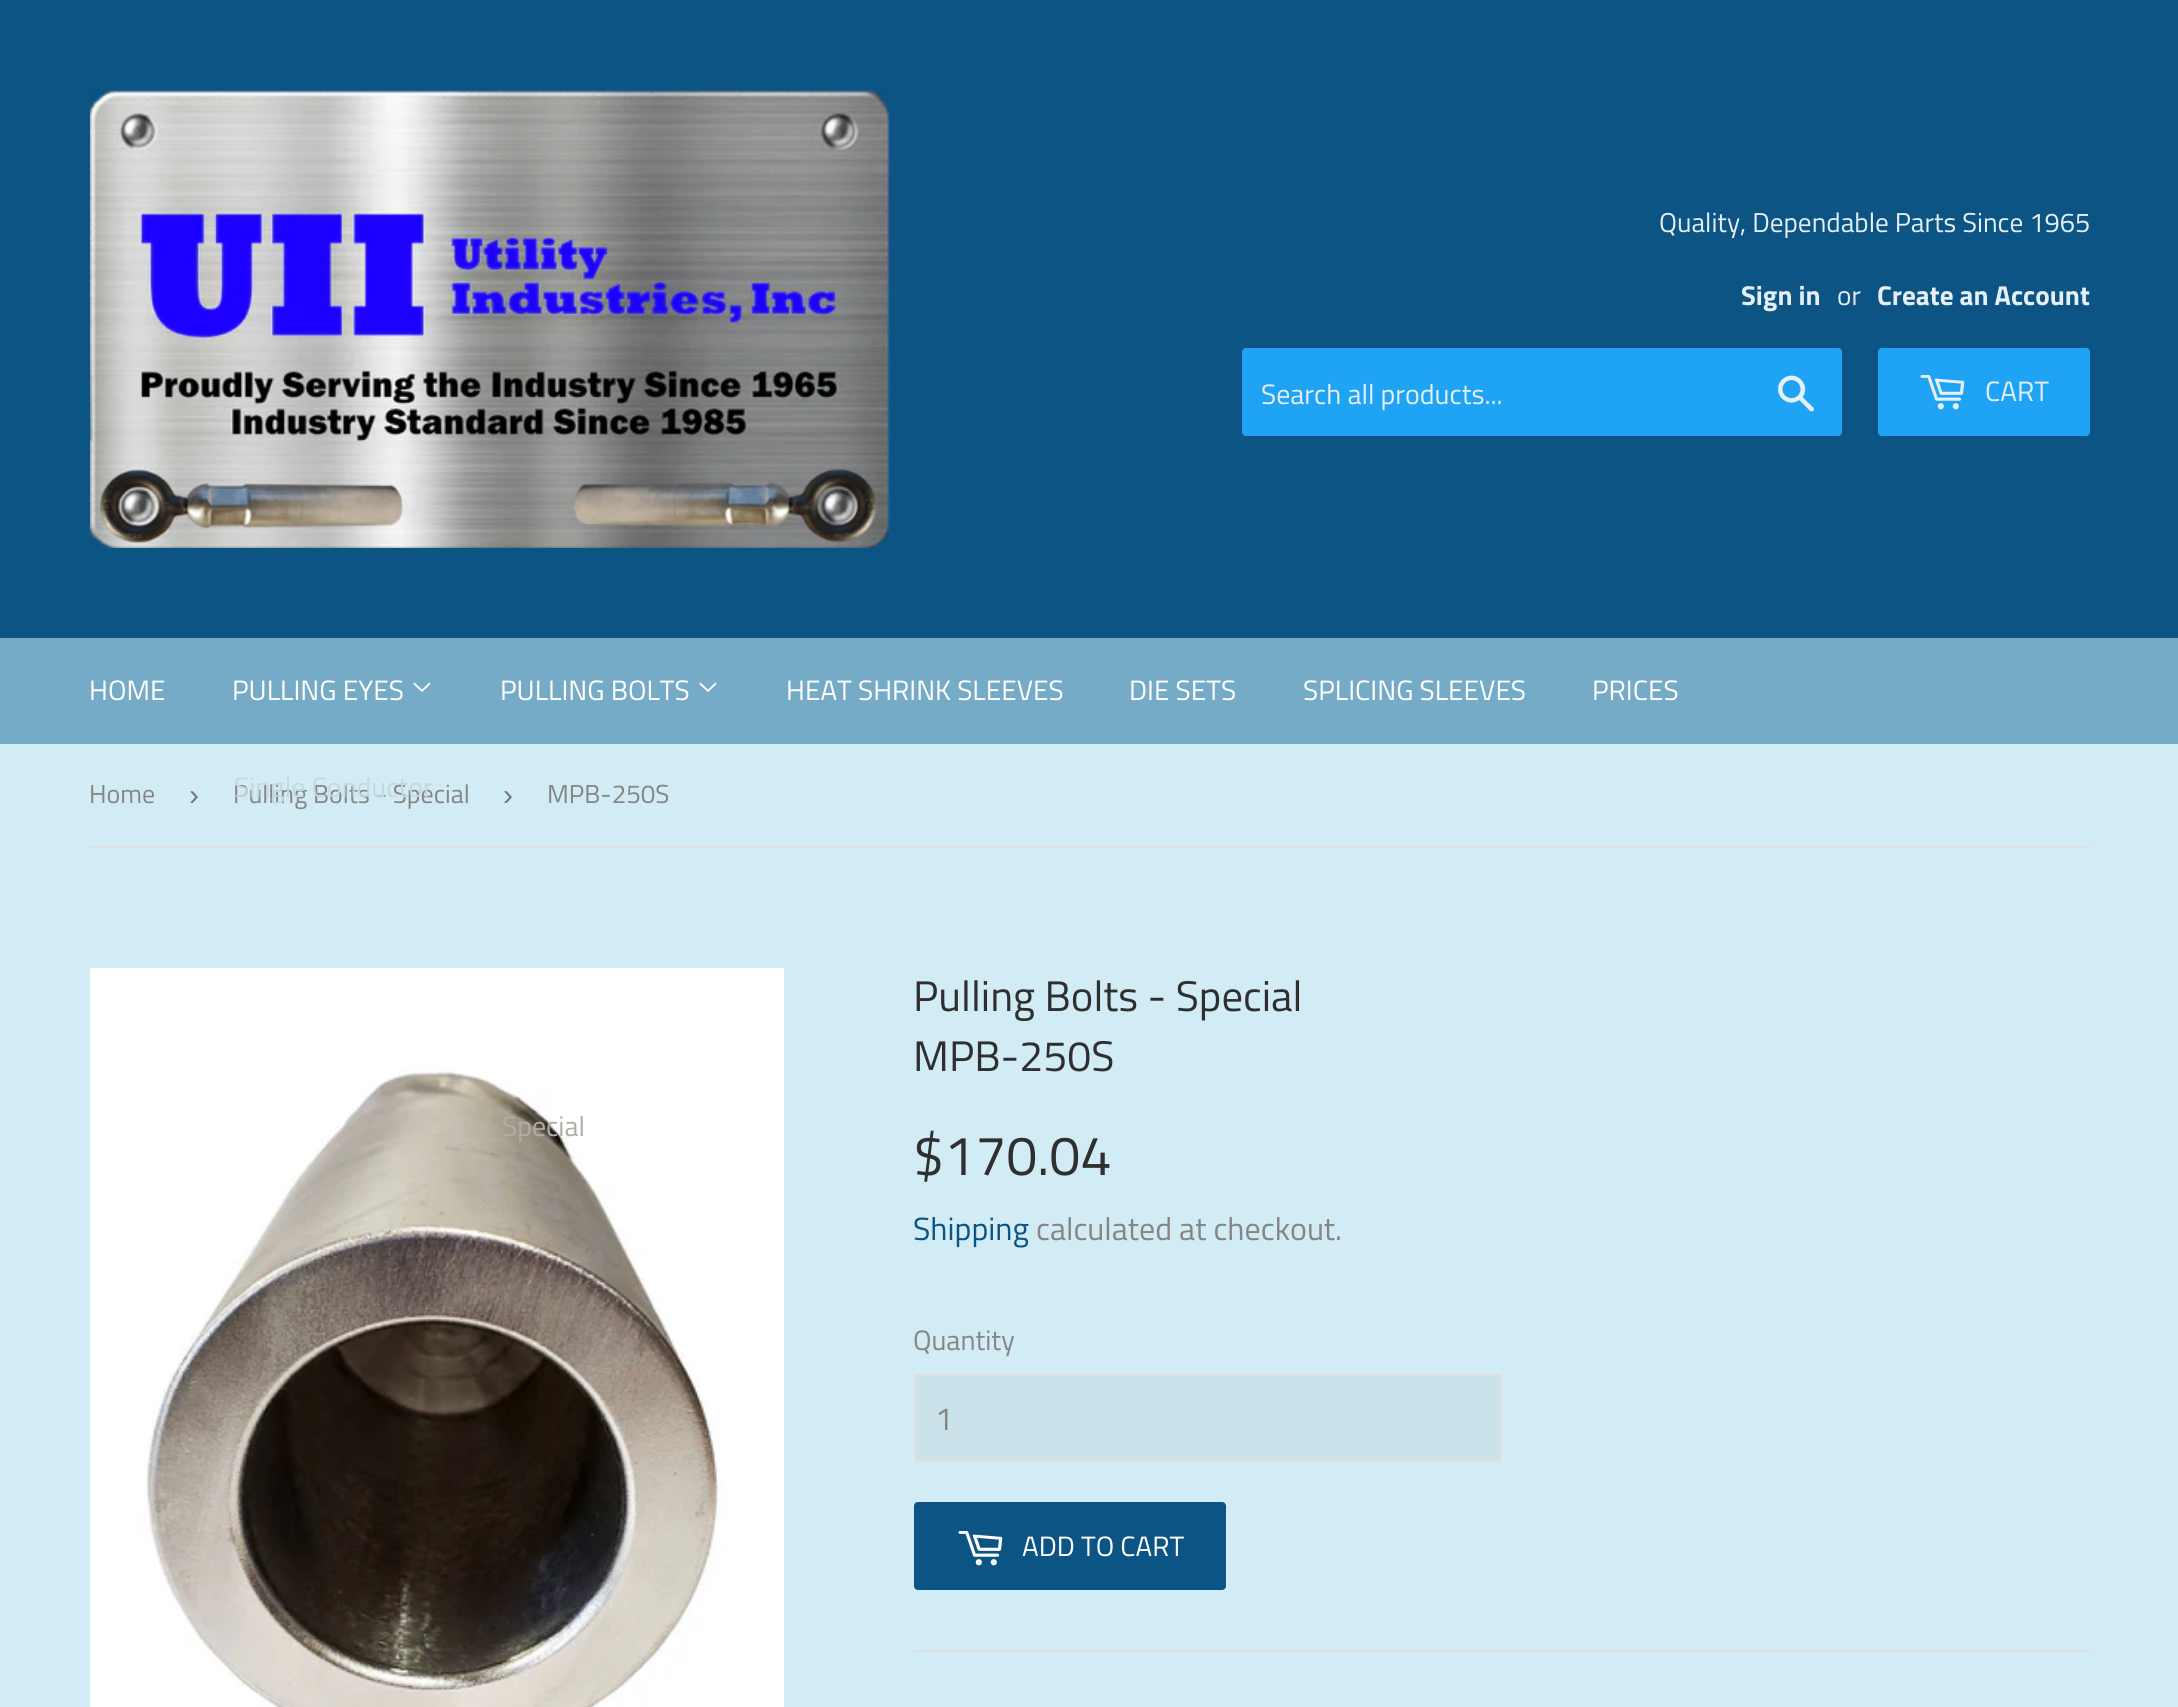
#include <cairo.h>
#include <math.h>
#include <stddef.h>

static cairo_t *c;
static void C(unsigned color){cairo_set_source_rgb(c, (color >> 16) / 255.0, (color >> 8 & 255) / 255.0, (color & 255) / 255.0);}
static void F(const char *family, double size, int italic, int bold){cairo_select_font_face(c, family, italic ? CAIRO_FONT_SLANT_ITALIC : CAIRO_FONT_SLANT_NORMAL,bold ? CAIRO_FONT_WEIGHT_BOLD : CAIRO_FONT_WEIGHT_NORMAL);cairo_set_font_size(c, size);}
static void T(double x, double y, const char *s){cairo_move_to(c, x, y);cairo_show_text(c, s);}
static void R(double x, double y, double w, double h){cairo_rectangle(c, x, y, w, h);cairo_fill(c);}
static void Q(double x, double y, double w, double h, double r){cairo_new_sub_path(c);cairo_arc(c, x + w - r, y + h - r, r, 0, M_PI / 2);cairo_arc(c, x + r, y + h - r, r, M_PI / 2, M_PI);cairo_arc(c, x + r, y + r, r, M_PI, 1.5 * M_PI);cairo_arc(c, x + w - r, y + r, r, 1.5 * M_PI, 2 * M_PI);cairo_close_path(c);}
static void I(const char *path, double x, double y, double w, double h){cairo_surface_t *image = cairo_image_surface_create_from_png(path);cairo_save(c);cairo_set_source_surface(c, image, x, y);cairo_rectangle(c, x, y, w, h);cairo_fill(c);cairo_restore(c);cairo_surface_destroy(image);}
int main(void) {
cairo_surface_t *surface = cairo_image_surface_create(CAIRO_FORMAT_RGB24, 2178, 1707);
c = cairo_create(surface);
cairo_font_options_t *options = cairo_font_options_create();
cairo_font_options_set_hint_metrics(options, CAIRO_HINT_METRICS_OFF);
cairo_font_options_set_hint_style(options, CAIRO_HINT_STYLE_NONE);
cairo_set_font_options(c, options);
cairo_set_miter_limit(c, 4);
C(0xd2ecf5);
cairo_paint(c);
C(0x0c5484);
R(0,0,2178,638);
I("1.png",90,90,800,458);
F("Titillium Web",27.25,0,0);
C(0xe5eff5);
T(1659,232,"Quality, Dependable Parts Since 1965");
F("Titillium Web",27.25,0,1);
T(1741,305,"Sign in");
F("Titillium Web",27.25,0,0);
T(1837,305,"or");
F("Titillium Web",27.25,0,1);
T(1877,305,"Create an Account");
C(0x1fa3f5);
Q(1242,348,600,88,4);
cairo_fill(c);
F("Titillium Web",28,0,0);
C(0xe5eff5);
T(1261,404,"Search all products...");
I("2.png",1778,375,36,37);
C(0x1fa3f5);
Q(1878,348,212,88,4);
cairo_fill(c);
I("3.png",1920,375,45,35);
C(0xe5eff5);
T(1985,401,"CART");
C(0x76abc7);
R(0,638,2178,106);
C(0xffffff);
T(89,700,"HOME");
T(232,700,"PULLING EYES");
I("4.png",413,682,18,10);
F("Titillium Web",26,0,0);
C(0x858585);
T(233,803,"Pulling Bolts - Special");
F("Titillium Web",28,0,0);
C(0xc3d8df);
T(234,797,"Single Conductor");
C(0xffffff);
T(500,700,"PULLING BOLTS");
I("4.png",699,682,18,10);
I("5.png",90,968,694,739);
C(0xb1ada5);
T(502,1136,"Special");
C(0xffffff);
T(786,700,"HEAT SHRINK SLEEVES");
T(1129,700,"DIE SETS");
T(1303,700,"SPLICING SLEEVES");
T(1592,700,"PRICES");
C(0xdedede);
R(90,846,2000,2);
F("Titillium Web",26,0,0);
C(0x858585);
T(89,803,"Home");
F("Liberation Sans",30,0,0);
C(0x767676);
T(189,805,"›");
T(503,805,"›");
F("Titillium Web",26,0,0);
C(0x858585);
T(547,803,"MPB-250S");
F("Titillium Web",42.75,0,0);
C(0x2f2f2f);
T(913,1011,"Pulling Bolts - Special");
T(913,1071,"MPB-250S");
F("Titillium Web",55.5,0,0);
T(913,1175,"$170.04");
F("Titillium Web",32,0,0);
C(0x0c5484);
T(913,1240,"Shipping");
C(0x858585);
T(1036,1240,"calculated at checkout.");
F("Titillium Web",28,0,0);
T(913,1350,"Quantity");
C(0xcae2ea);
Q(915,1375,586,86,3);
cairo_fill_preserve(c);
C(0xdedede);
cairo_stroke(c);
F("Titillium Web",32,0,0);
C(0x858585);
T(935,1430,"1");
C(0x0c5484);
Q(914,1502,312,88,4);
cairo_fill(c);
I("6.png",958,1531,45,35);
F("Titillium Web",28,0,0);
C(0xffffff);
T(1022,1556,"ADD TO CART");
C(0xdedede);
R(914,1650,1176,2);
cairo_surface_write_to_png(surface, "o.png");
cairo_font_options_destroy(options);
cairo_destroy(c);
cairo_surface_destroy(surface);
return 0;
}
